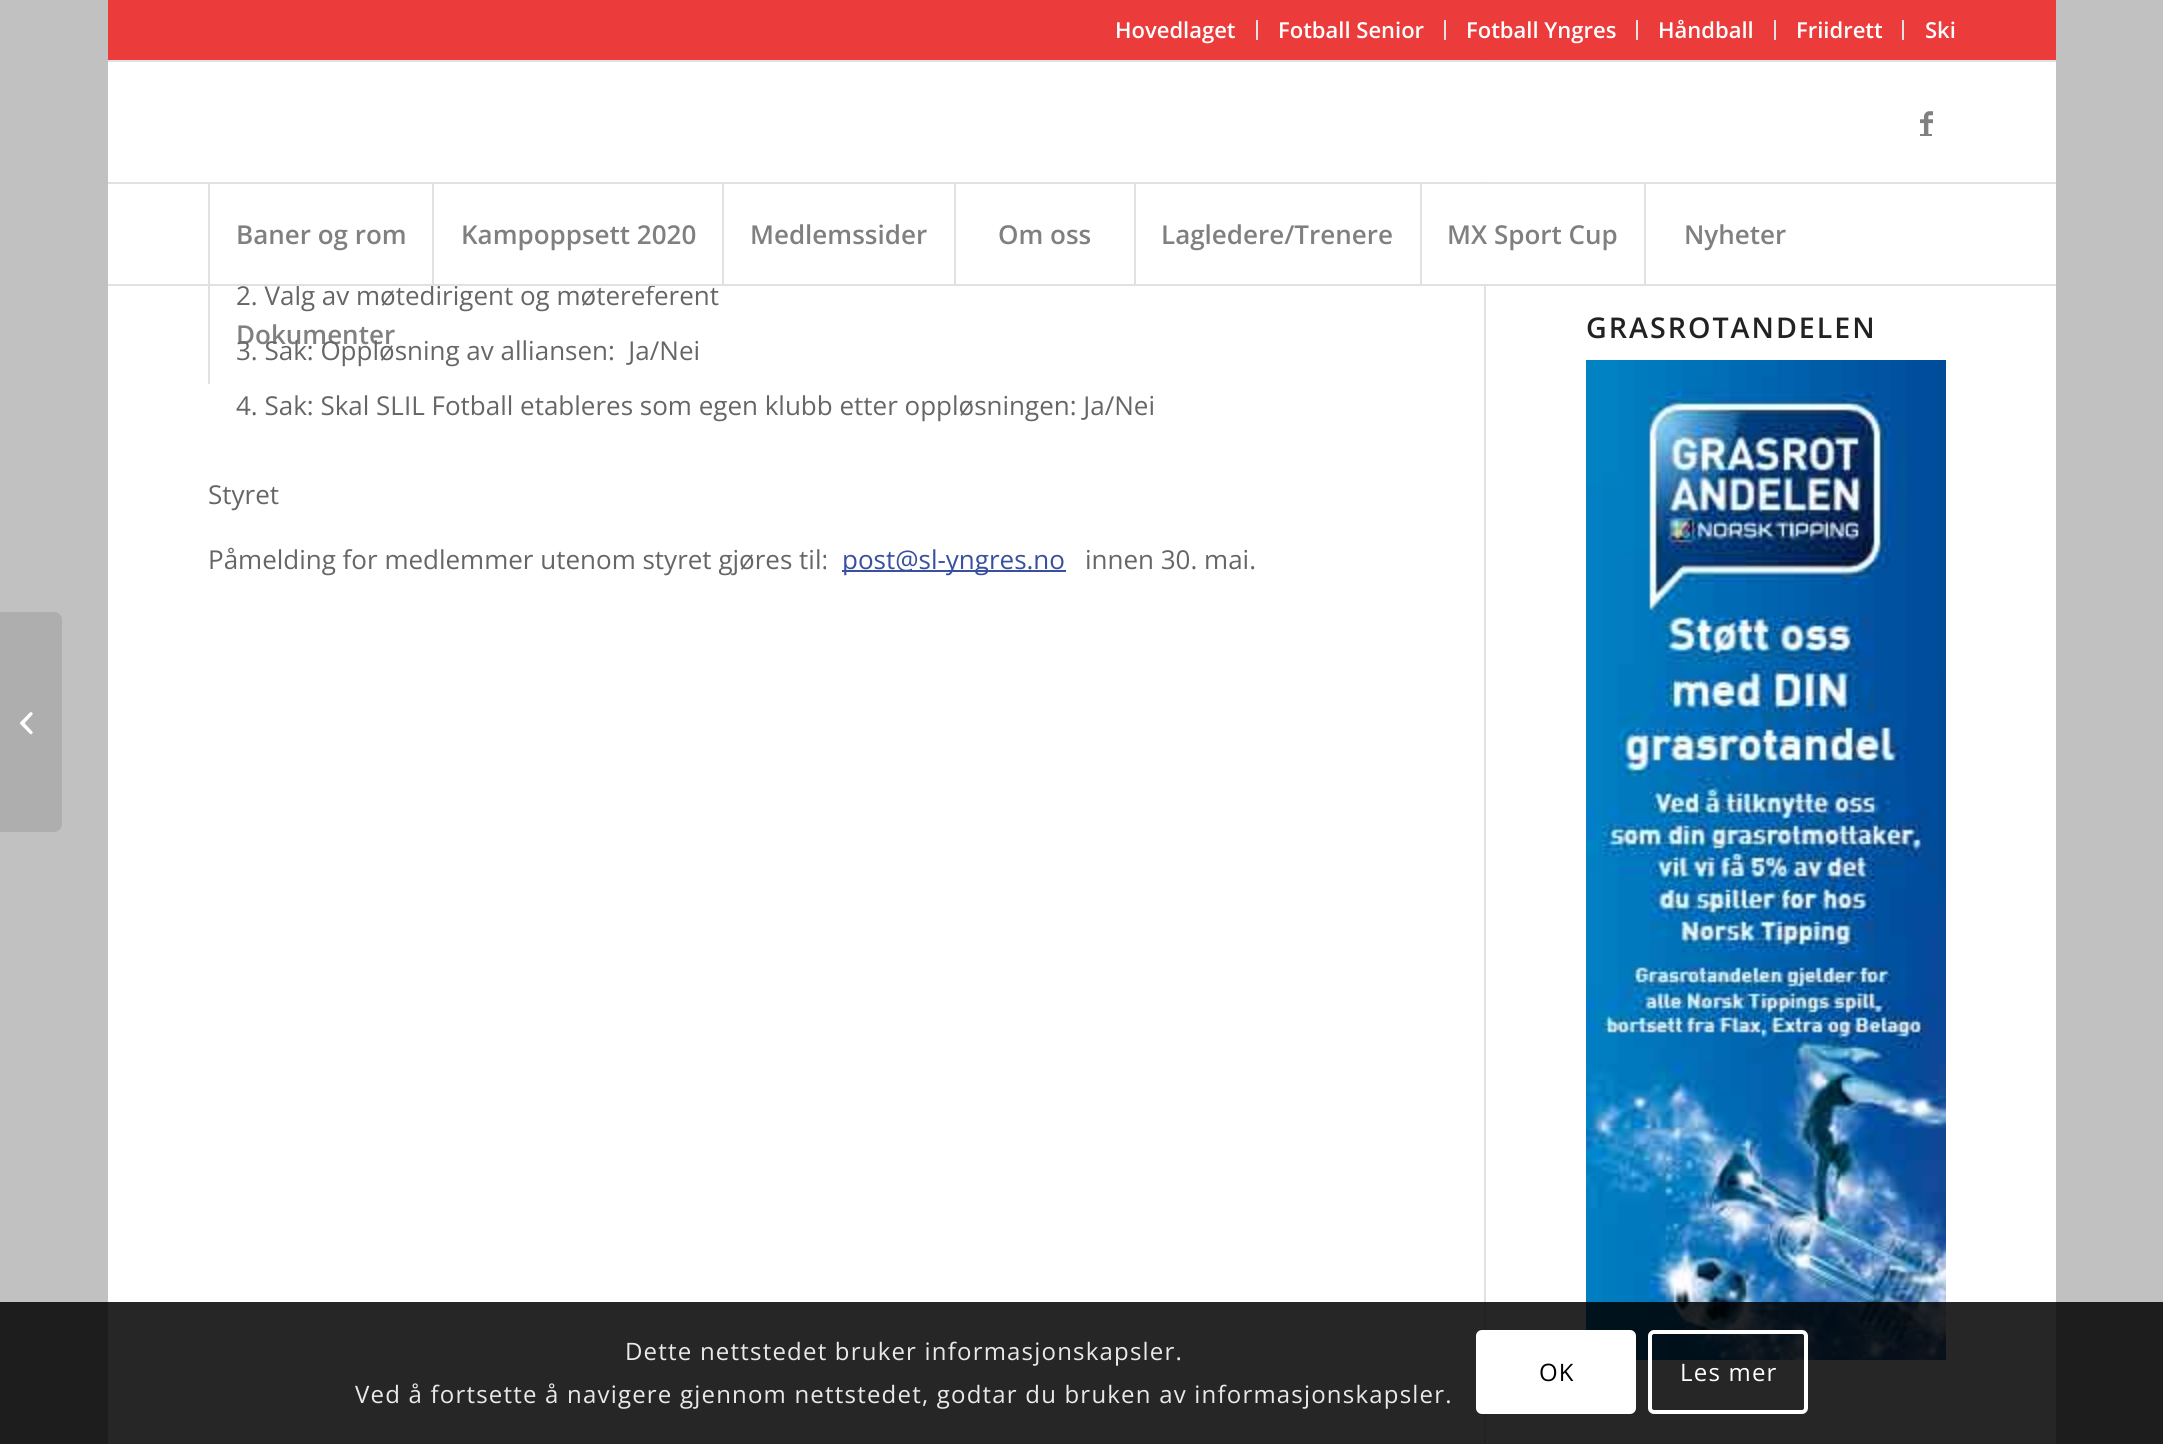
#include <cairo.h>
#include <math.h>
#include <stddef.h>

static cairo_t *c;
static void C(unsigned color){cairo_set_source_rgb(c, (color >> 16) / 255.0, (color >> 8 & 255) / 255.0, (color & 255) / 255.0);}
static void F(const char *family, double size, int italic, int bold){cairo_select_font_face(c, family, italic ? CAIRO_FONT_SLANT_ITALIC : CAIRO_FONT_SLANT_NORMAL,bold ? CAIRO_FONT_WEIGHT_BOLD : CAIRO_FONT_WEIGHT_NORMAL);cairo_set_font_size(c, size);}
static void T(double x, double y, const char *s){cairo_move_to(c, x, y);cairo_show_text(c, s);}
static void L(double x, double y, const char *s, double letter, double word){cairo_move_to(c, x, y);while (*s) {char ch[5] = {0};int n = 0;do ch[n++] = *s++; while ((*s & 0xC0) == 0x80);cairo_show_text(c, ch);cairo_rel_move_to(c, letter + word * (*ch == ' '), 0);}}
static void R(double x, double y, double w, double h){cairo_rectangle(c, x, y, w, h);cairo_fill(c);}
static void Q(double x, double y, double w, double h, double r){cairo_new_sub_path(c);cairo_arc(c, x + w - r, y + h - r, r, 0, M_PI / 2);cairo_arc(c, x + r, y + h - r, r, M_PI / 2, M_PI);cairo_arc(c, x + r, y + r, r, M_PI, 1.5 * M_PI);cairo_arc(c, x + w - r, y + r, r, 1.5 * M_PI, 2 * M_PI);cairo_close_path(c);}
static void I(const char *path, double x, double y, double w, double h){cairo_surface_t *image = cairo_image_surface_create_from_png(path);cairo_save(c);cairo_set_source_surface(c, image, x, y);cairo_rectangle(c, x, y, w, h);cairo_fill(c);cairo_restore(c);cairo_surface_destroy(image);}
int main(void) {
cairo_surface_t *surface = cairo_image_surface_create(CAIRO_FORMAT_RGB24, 2163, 1444);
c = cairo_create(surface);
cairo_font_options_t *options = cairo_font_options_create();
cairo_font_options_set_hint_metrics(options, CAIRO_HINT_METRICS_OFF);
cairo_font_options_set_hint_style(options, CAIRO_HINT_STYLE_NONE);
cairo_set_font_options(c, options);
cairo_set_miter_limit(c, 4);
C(0xc1c1c1);
cairo_paint(c);
C(0xeb3b3b);
R(108,0,1948,60);
C(0xe1e1e1);
R(108,60,1948,2);
R(1256,20,2,20);
F("Open Sans SemiBold",22,0,0);
C(0xffffff);
T(1115,38,"Hovedlaget");
C(0xe1e1e1);
R(1444,20,2,20);
C(0xffffff);
T(1278,38,"Fotball Senior");
C(0xe1e1e1);
R(1636,20,2,20);
C(0xffffff);
T(1466,38,"Fotball Yngres");
C(0xe1e1e1);
R(1774,20,2,20);
C(0xffffff);
T(1658,38,"Håndball");
C(0xe1e1e1);
R(1902,20,2,20);
C(0xffffff);
T(1796,38,"Friidrett");
T(1925,38,"Ski");
R(108,62,1948,1382);
C(0xe1e1e1);
R(1484,62,2,1382);
cairo_set_source_rgba(c,1,1,1,0.95);
R(1484,62,2,222);
F("Open Sans",26,0,0);
C(0x666666);
T(236,305,"2. Valg av møtedirigent og møtereferent");
C(0xe1e1e1);
R(108,284,1948,2);
I("1.png",1920,111,13,23);
C(0x808080);
R(1920,134,12,2);
C(0xe1e1e1);
R(108,182,1948,2);
R(208,184,2,200);
F("Open Sans SemiBold",26,0,0);
C(0x808080);
T(236,244,"Baner og rom");
C(0xe1e1e1);
R(432,184,2,100);
C(0x808080);
T(461,244,"Kampoppsett 2020");
C(0xe1e1e1);
R(722,184,2,100);
C(0x808080);
T(750,244,"Medlemssider");
C(0xe1e1e1);
R(954,184,2,100);
C(0x808080);
T(998,244,"Om oss");
C(0xe1e1e1);
R(1134,184,2,100);
C(0x808080);
T(1161,244,"Lagledere/Trenere");
C(0xe1e1e1);
R(1420,184,2,100);
C(0x808080);
T(1447,244,"MX Sport Cup");
C(0xe1e1e1);
R(1644,184,2,100);
C(0x808080);
T(1684,244,"Nyheter");
T(236,344,"Dokumenter");
F("Open Sans",26,0,0);
C(0x666666);
T(236,360,"3. Sak: Oppløsning av alliansen:  Ja/Nei");
T(236,415,"4. Sak: Skal SLIL Fotball etableres som egen klubb etter oppløsningen: Ja/Nei");
T(208,504,"Styret");
T(208,569,"Påmelding for medlemmer utenom styret gjøres til:");
C(0x394fa0);
R(842,570,224,2);
T(842,569,"post@sl-yngres.no");
C(0x666666);
T(1085,569,"innen 30. mai.");
F("Open Sans SemiBold",28.6,0,0);
C(0x222222);
L(1586,338,"GRASROTANDELEN",2,0);
I("2.png",1586,360,360,1000);
C(0xaeaeae);
cairo_new_path(c);
cairo_move_to(c,0,612);
cairo_line_to(c,54,612);
cairo_curve_to(c,58.5,612,62,615.5,62,620);
cairo_line_to(c,62,824);
cairo_curve_to(c,62,828.5,58.5,832,54,832);
cairo_line_to(c,0,832);
cairo_close_path(c);
cairo_fill(c);
I("3.png",20,712,13,23);
cairo_set_source_rgba(c,0,0,0,0.85);
R(0,1302,2163,142);
F("Open Sans",24,0,0);
C(0xe9e9e9);
L(625,1360,"Dette nettstedet bruker informasjonskapsler.",1.2,0);
L(355,1403,"Ved å fortsette å navigere gjennom nettstedet, godtar du bruken av informasjonskapsler.",1.2,0);
C(0xffffff);
Q(1476,1330,160,84,6);
cairo_fill(c);
C(0x000000);
L(1539,1381,"OK",1.2,0);
Q(1650,1332,156,80,4);
C(0xffffff);
cairo_set_line_width(c,4);
cairo_stroke(c);
L(1680,1381,"Les mer",1.2,0);
cairo_surface_write_to_png(surface, "o.png");
cairo_font_options_destroy(options);
cairo_destroy(c);
cairo_surface_destroy(surface);
return 0;
}
